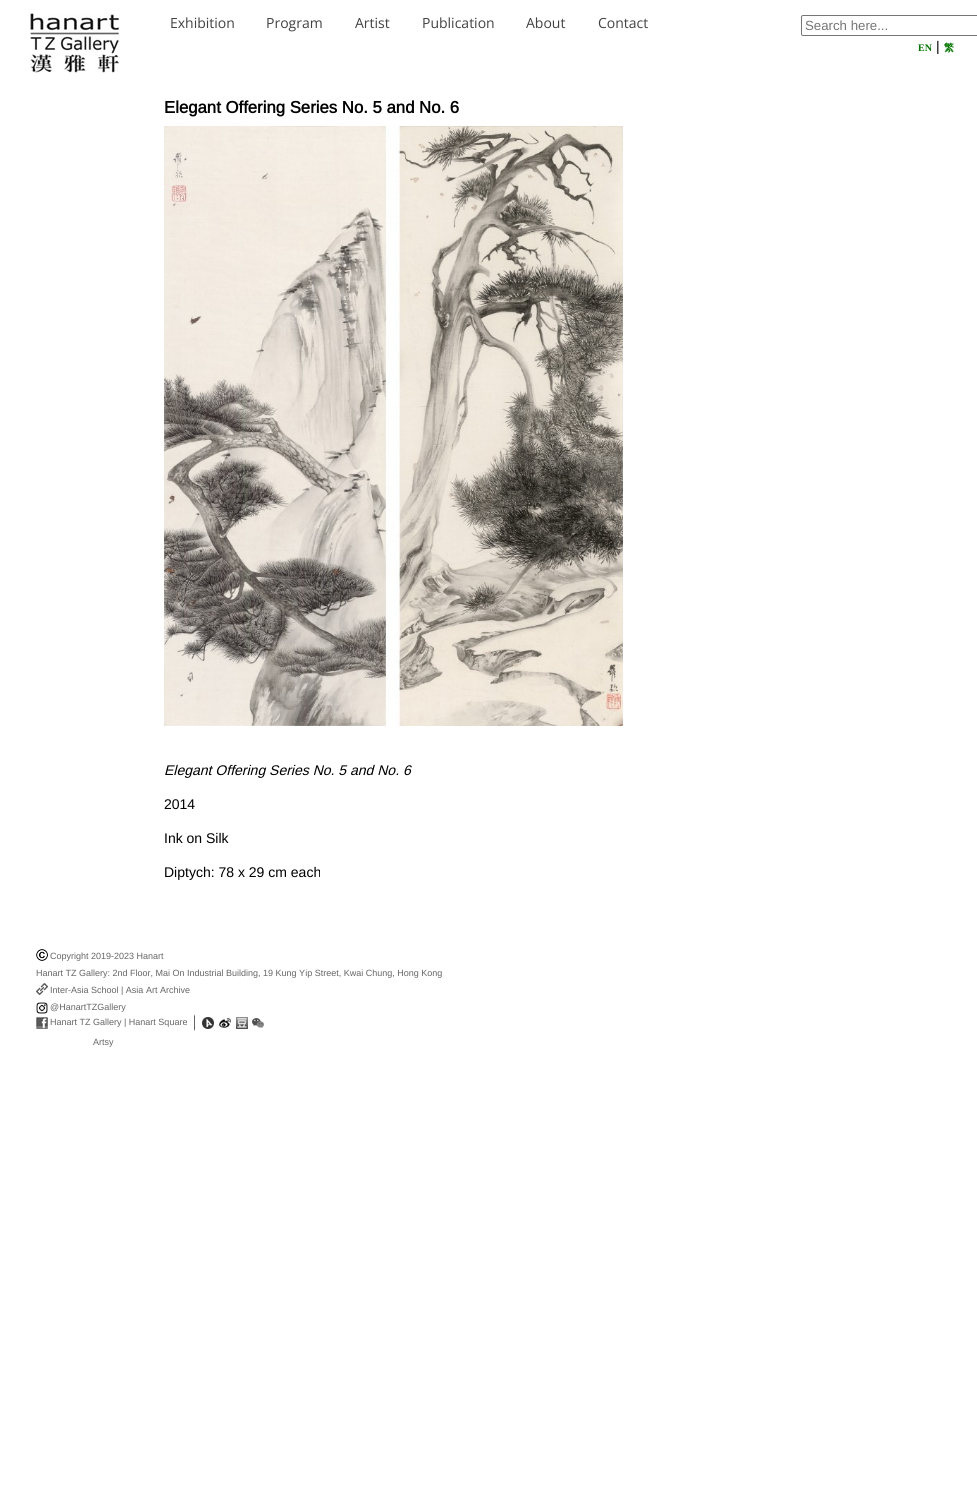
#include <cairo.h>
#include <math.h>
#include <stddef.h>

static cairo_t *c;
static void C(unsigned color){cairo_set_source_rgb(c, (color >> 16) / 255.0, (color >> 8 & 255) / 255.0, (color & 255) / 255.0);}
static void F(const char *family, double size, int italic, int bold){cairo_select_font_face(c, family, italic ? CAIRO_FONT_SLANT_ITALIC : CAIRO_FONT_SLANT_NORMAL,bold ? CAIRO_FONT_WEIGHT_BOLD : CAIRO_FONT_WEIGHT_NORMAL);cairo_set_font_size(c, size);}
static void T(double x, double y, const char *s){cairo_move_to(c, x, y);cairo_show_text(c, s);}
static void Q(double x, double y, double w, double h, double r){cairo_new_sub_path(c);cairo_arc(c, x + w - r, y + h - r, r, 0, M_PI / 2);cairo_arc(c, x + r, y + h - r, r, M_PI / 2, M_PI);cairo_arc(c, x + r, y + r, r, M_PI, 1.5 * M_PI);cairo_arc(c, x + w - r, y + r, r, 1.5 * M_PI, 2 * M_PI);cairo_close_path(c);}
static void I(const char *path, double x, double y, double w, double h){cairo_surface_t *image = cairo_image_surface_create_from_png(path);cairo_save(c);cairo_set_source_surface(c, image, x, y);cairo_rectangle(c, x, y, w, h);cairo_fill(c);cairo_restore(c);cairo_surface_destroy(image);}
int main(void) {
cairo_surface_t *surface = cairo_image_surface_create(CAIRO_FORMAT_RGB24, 977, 1506);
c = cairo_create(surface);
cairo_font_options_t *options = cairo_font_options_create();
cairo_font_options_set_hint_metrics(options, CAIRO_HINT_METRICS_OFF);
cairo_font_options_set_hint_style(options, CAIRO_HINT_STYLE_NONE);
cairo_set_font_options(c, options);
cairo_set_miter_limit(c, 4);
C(0xffffff);
cairo_paint(c);
I("1.png",30,13,90,60);
F("Open Sans",14,0,0);
C(0x424242);
T(170,28,"Exhibition");
T(266,28,"Program");
T(355,28,"Artist");
T(422,28,"Publication");
T(526,28,"About");
T(598,28,"Contact");
Q(801.5,15.5,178,20,1.5);
C(0x767676);
cairo_set_line_width(c,1);
cairo_stroke(c);
F("Liberation Sans",13.25,0,0);
C(0x757575);
T(805,30,"Search here...");
F("Liberation Serif",10,0,1);
C(0x037500);
T(918,51,"EN");
F("Arimo",14,0,0);
C(0x000000);
T(936,51,"|");
F("WenQuanYi Zen Hei",10,0,1);
C(0x037500);
T(944,51,"繁");
F("Arimo",16.75,0,1);
C(0x000000);
T(164,113,"Elegant Offering Series No. 5 and No. 6");
I("2.png",164,126,459,600);
F("Arimo",14,1,0);
T(164,775,"Elegant Offering Series No. 5 and No. 6");
F("Arimo",14,0,0);
T(164,809,"2014");
T(164,843,"Ink on Silk");
T(164,877,"Diptych: 78 x 29 cm each");
I("3.png",36,949,12,12);
F("Arimo",9,0,0);
C(0x666666);
T(50,959,"Copyright 2019-2023 Hanart");
T(36,976,"Hanart TZ Gallery: 2nd Floor, Mai On Industrial Building, 19 Kung Yip Street, Kwai Chung, Hong Kong");
I("4.png",36,983,12,12);
T(50,993,"Inter-Asia School | Asia Art Archive");
I("5.png",36,1002,12,12);
T(50,1010,"@HanartTZGallery");
I("6.png",36,1017,12,12);
T(50,1025,"Hanart TZ Gallery | Hanart Square");
I("7.png",194,1014,1,18);
I("8.png",202,1017,12,12);
I("9.png",219,1018,12,10);
I("10.png",236,1017,12,12);
I("11.png",252,1018,12,10);
T(93,1045,"Artsy");
cairo_surface_write_to_png(surface, "o.png");
cairo_font_options_destroy(options);
cairo_destroy(c);
cairo_surface_destroy(surface);
return 0;
}
